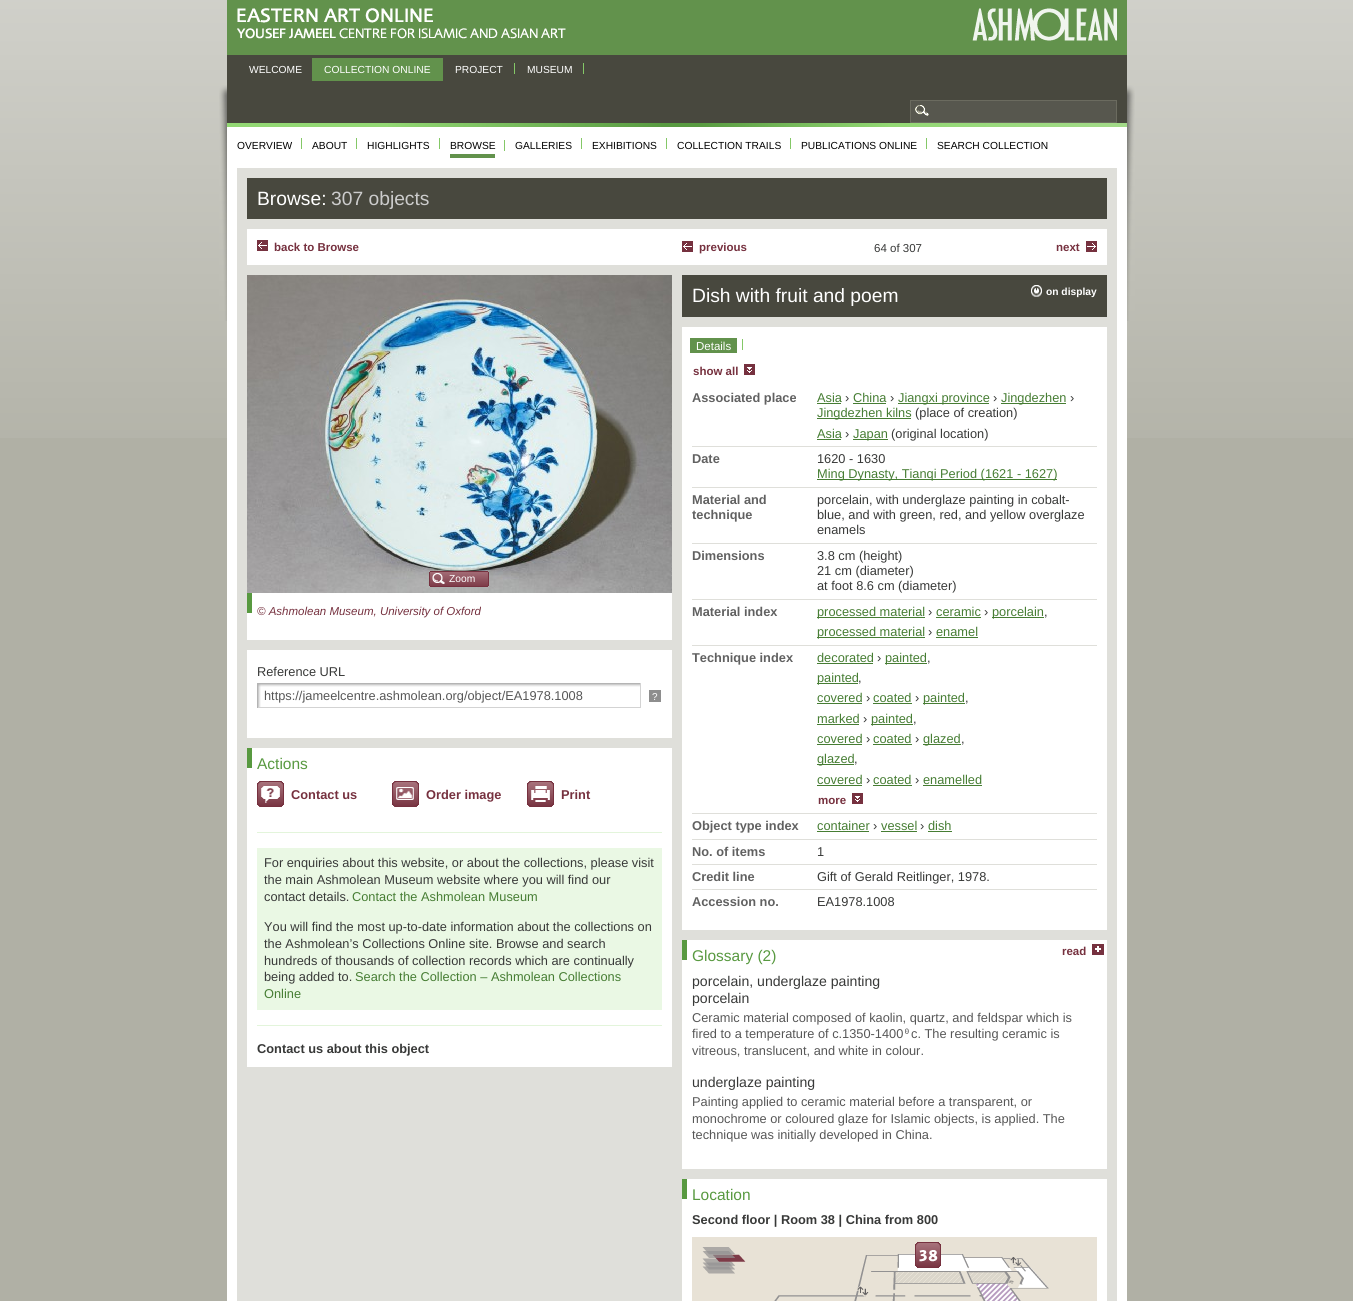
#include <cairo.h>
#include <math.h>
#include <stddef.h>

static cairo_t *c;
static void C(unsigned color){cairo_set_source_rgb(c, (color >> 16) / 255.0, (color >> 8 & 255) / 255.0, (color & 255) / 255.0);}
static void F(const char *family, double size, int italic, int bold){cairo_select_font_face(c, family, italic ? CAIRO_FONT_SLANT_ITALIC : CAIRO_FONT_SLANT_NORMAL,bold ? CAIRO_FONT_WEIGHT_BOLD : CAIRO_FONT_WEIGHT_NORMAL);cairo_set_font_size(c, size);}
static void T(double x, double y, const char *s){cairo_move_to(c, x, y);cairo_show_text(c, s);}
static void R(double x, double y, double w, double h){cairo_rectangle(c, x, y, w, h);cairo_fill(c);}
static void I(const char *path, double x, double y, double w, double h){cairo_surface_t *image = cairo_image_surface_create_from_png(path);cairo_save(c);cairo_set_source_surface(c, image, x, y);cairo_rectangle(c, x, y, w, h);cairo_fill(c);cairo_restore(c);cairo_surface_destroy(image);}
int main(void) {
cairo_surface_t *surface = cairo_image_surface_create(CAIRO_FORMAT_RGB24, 1353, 1301);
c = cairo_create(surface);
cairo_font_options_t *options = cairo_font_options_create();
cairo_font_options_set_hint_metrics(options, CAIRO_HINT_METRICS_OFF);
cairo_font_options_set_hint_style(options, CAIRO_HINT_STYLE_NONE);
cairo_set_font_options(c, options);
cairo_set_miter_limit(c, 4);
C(0xb0b0a5);
cairo_paint(c);
I("1.png",0,0,1353,438);
I("2.png",219,85,916,236);
C(0x62924c);
R(227,0,900,55);
I("3.png",237,8,329,31);
I("4.png",972,8,145,33);
C(0x48483e);
R(227,55,900,68);
F("Liberation Sans",10.25,0,0);
C(0xffffff);
T(249,73,"WELCOME");
C(0x62924c);
R(312,58,131,23);
C(0xffffff);
T(324,73,"COLLECTION ONLINE");
C(0x84c867);
R(514,63,1,11);
C(0xffffff);
T(455,73,"PROJECT");
C(0x84c867);
R(583,63,1,11);
C(0xffffff);
T(527,73,"MUSEUM");
C(0x57574e);
R(911,101,205,21);
I("5.png",915,105,14,11);
cairo_rectangle(c,910.5,100.5,206,22);
C(0x6b6b5f);
cairo_set_line_width(c,1);
cairo_stroke(c);
C(0xffffff);
R(227,321,900,980);
I("6.png",227,123,900,4);
C(0x84c867);
R(301,138,1,11);
C(0x000000);
T(237,149,"OVERVIEW");
C(0x84c867);
R(356,138,1,11);
C(0x000000);
T(312,149,"ABOUT");
C(0x84c867);
R(439,138,1,11);
C(0x000000);
T(367,149,"HIGHLIGHTS");
C(0x84c867);
R(504,140,1,11);
C(0x62924c);
R(450,154,45,4);
C(0x000000);
T(450,149,"BROWSE");
C(0x84c867);
R(581,138,1,11);
C(0x000000);
T(515,149,"GALLERIES");
C(0x84c867);
R(666,138,1,11);
C(0x000000);
T(592,149,"EXHIBITIONS");
C(0x84c867);
R(790,138,1,11);
C(0x000000);
T(677,149,"COLLECTION TRAILS");
C(0x84c867);
R(926,138,1,11);
C(0x000000);
T(801,149,"PUBLICATIONS ONLINE");
T(937,149,"SEARCH COLLECTION");
C(0xdfdfda);
R(237,168,880,1133);
C(0x48483e);
R(247,178,860,41);
F("Liberation Sans",19.25,0,0);
C(0xffffff);
T(257,205,"Browse:");
C(0xcccccc);
T(331,205,"307 objects");
C(0xffffff);
R(247,229,860,36);
I("7.png",257,240,11,11);
F("Liberation Sans",11.5,0,1);
C(0x76313f);
T(274,251,"back to Browse");
I("7.png",682,241,11,11);
T(699,251,"previous");
F("Liberation Sans",11.5,0,0);
C(0x383938);
T(874,252,"64 of 307");
F("Liberation Sans",11.5,0,1);
C(0x76313f);
T(1056,251,"next");
I("8.png",1086,241,11,11);
C(0xffffff);
R(247,593,425,474);
I("9.png",247,275,425,318);
I("10.png",429,571,60,16);
I("11.png",432,573,13,11);
F("Liberation Sans",10.25,0,0);
T(449,582,"Zoom");
C(0x589940);
R(247,593,5,20);
C(0xdfdfda);
R(247,640,425,10);
F("Liberation Sans",11.5,1,0);
C(0x76313f);
T(257,615,"© Ashmolean Museum, University of Oxford");
C(0xdfdfda);
R(247,738,425,10);
F("Liberation Sans",12.8,0,0);
C(0x383938);
T(257,676,"Reference URL");
I("12.png",258,684,382,23);
C(0xb4b4b4);
R(257,683,384,1);
C(0xd3d3d3);
R(640,683,1,25);
R(257,707,384,1);
C(0xb4b4b4);
R(257,683,1,25);
C(0x575757);
T(264,700,"https://jameelcentre.ashmolean.org/object/EA1978.1008");
C(0x8e8e8e);
R(649,690,12,12);
F("Liberation Sans",10,0,0);
C(0xffffff);
T(652,700,"?");
C(0x589940);
R(247,748,5,20);
F("Liberation Sans",15.5,0,0);
T(257,769,"Actions");
I("13.png",257,781,27,26);
F("Liberation Sans",12.8,0,1);
C(0x76313f);
T(291,799,"Contact us");
I("14.png",392,781,27,26);
T(426,799,"Order image");
I("15.png",527,781,27,26);
T(561,799,"Print");
C(0xe3f5db);
R(257,832,405,1);
C(0xeaf8e4);
R(257,848,405,162);
F("Liberation Sans",12.8,0,0);
C(0x383938);
T(264,867,"For enquiries about this website, or about the collections, please visit");
T(264,884,"the main Ashmolean Museum website where you will find our");
T(264,901,"contact details.");
C(0x467d33);
T(352,901,"Contact the Ashmolean Museum");
C(0x383938);
T(264,931,"You will find the most up-to-date information about the collections on");
T(264,948,"the Ashmolean’s Collections Online site. Browse and search");
T(264,965,"hundreds of thousands of collection records which are continually");
T(264,981,"being added to.");
C(0x467d33);
T(355,981,"Search the Collection – Ashmolean Collections");
T(264,998,"Online");
C(0xe3f5db);
R(257,1025,405,1);
F("Liberation Sans",12.8,0,1);
C(0x383938);
T(257,1053,"Contact us about this object");
C(0xffffff);
R(682,327,425,974);
C(0x48483e);
R(682,275,425,42);
F("Liberation Sans",19.25,0,0);
C(0xffffff);
T(692,302,"Dish with fruit and poem");
I("16.png",1031,285,11,12);
F("Liberation Sans",10.25,0,1);
T(1046,295,"on display");
C(0xdfdfda);
R(682,930,425,10);
C(0x84c867);
R(742,339,1,11);
C(0x62924c);
R(690,338,47,15);
F("Liberation Sans",11.5,0,0);
C(0xffffff);
T(696,350,"Details");
F("Liberation Sans",11.5,0,1);
C(0x76313f);
T(693,375,"show all");
I("17.png",744,364,11,11);
C(0xdfdfda);
R(692,446,405,1);
F("Liberation Sans",12.8,0,1);
C(0x616161);
T(692,402,"Associated place");
F("Liberation Sans",12.8,0,0);
C(0x467d33);
T(817,402,"Asia");
R(817,403,24,1);
C(0x383938);
T(845,402,"›");
C(0x467d33);
T(853,402,"China");
R(853,403,33,1);
C(0x383938);
T(890,402,"›");
C(0x467d33);
R(898,403,91,1);
T(898,402,"Jiangxi province");
C(0x383938);
T(993,402,"›");
C(0x467d33);
R(1001,403,65,1);
T(1001,402,"Jingdezhen");
C(0x383938);
T(1070,402,"›");
C(0x467d33);
R(817,418,94,1);
T(817,417,"Jingdezhen kilns");
C(0x383938);
T(915,417,"(place of creation)");
C(0x467d33);
T(817,438,"Asia");
R(817,439,24,1);
C(0x383938);
T(845,438,"›");
C(0x467d33);
R(853,439,35,1);
T(853,438,"Japan");
C(0x383938);
T(891,438,"(original location)");
C(0xdfdfda);
R(692,487,405,1);
F("Liberation Sans",12.8,0,1);
C(0x616161);
T(692,463,"Date");
F("Liberation Sans",12.8,0,0);
C(0x383938);
T(817,463,"1620 - 1630");
C(0x467d33);
R(817,479,240,1);
T(817,478,"Ming Dynasty, Tianqi Period (1621 - 1627)");
C(0xdfdfda);
R(692,543,405,1);
F("Liberation Sans",12.8,0,1);
C(0x616161);
T(692,504,"Material and");
T(692,519,"technique");
F("Liberation Sans",12.8,0,0);
C(0x383938);
T(817,504,"porcelain, with underglaze painting in cobalt-");
T(817,519,"blue, and with green, red, and yellow overglaze");
T(817,534,"enamels");
C(0xdfdfda);
R(692,599,405,1);
F("Liberation Sans",12.8,0,1);
C(0x616161);
T(692,560,"Dimensions");
F("Liberation Sans",12.8,0,0);
C(0x383938);
T(817,560,"3.8 cm (height)");
T(817,575,"21 cm (diameter)");
T(817,590,"at foot 8.6 cm (diameter)");
C(0xdfdfda);
R(692,645,405,1);
F("Liberation Sans",12.8,0,1);
C(0x616161);
T(692,616,"Material index");
C(0x467d33);
R(817,617,108,1);
F("Liberation Sans",12.8,0,0);
T(817,616,"processed material");
C(0x383938);
T(928,616,"›");
C(0x467d33);
T(936,616,"ceramic");
R(936,617,45,1);
C(0x383938);
T(984,616,"›");
C(0x467d33);
R(992,617,52,1);
T(992,616,"porcelain");
C(0x383938);
T(1044,616,",");
C(0x467d33);
R(817,637,108,1);
T(817,636,"processed material");
C(0x383938);
T(928,636,"›");
C(0x467d33);
T(936,636,"enamel");
R(936,637,42,1);
C(0xdfdfda);
R(692,813,405,1);
F("Liberation Sans",12.8,0,1);
C(0x616161);
T(692,662,"Technique index");
F("Liberation Sans",12.8,0,0);
C(0x467d33);
T(817,662,"decorated");
R(817,663,56,1);
C(0x383938);
T(877,662,"›");
C(0x467d33);
R(885,663,42,1);
T(885,662,"painted");
C(0x383938);
T(927,662,",");
C(0x467d33);
R(817,683,41,1);
T(817,682,"painted");
C(0x383938);
T(858,682,",");
C(0x467d33);
T(817,702,"covered");
R(817,703,45,1);
C(0x383938);
T(866,702,"›");
C(0x467d33);
R(873,703,39,1);
T(873,702,"coated");
C(0x383938);
T(915,702,"›");
C(0x467d33);
R(923,703,42,1);
T(923,702,"painted");
C(0x383938);
T(965,702,",");
C(0x467d33);
T(817,723,"marked");
R(817,724,42,1);
C(0x383938);
T(863,723,"›");
C(0x467d33);
R(871,724,42,1);
T(871,723,"painted");
C(0x383938);
T(913,723,",");
C(0x467d33);
T(817,743,"covered");
R(817,744,45,1);
C(0x383938);
T(866,743,"›");
C(0x467d33);
R(873,744,39,1);
T(873,743,"coated");
C(0x383938);
T(915,743,"›");
C(0x467d33);
R(923,744,38,1);
T(923,743,"glazed");
C(0x383938);
T(961,743,",");
C(0x467d33);
R(817,764,37,1);
T(817,763,"glazed");
C(0x383938);
T(854,763,",");
C(0x467d33);
T(817,784,"covered");
R(817,785,45,1);
C(0x383938);
T(866,784,"›");
C(0x467d33);
R(873,785,39,1);
T(873,784,"coated");
C(0x383938);
T(915,784,"›");
C(0x467d33);
T(923,784,"enamelled");
R(923,785,59,1);
F("Liberation Sans",11.5,0,1);
C(0x76313f);
T(818,804,"more");
I("17.png",852,793,11,11);
C(0xdfdfda);
R(692,839,405,1);
F("Liberation Sans",12.8,0,1);
C(0x616161);
T(692,830,"Object type index");
F("Liberation Sans",12.8,0,0);
C(0x467d33);
T(817,830,"container");
R(817,831,52,1);
C(0x383938);
T(873,830,"›");
C(0x467d33);
T(881,830,"vessel");
R(881,831,36,1);
C(0x383938);
T(920,830,"›");
C(0x467d33);
T(928,830,"dish");
R(928,831,24,1);
C(0xdfdfda);
R(692,864,405,1);
F("Liberation Sans",12.8,0,1);
C(0x616161);
T(692,856,"No. of items");
F("Liberation Sans",12.8,0,0);
C(0x383938);
T(817,856,"1");
C(0xdfdfda);
R(692,889,405,1);
F("Liberation Sans",12.8,0,1);
C(0x616161);
T(692,881,"Credit line");
F("Liberation Sans",12.8,0,0);
C(0x383938);
T(817,881,"Gift of Gerald Reitlinger, 1978.");
F("Liberation Sans",12.8,0,1);
C(0x616161);
T(692,906,"Accession no.");
F("Liberation Sans",12.8,0,0);
C(0x383938);
T(817,906,"EA1978.1008");
C(0x589940);
R(682,940,5,20);
C(0xdfdfda);
R(682,1169,425,10);
F("Liberation Sans",15.5,0,0);
C(0x589940);
T(692,961,"Glossary (2)");
F("Liberation Sans",11.5,0,1);
C(0x76313f);
T(1062,955,"read");
I("18.png",1092,944,12,11);
F("Liberation Sans",14.1,0,0);
C(0x383938);
T(692,986,"porcelain, underglaze painting");
T(692,1003,"porcelain");
F("Liberation Sans",12.8,0,0);
C(0x575757);
T(692,1022,"Ceramic material composed of kaolin, quartz, and feldspar which is");
T(692,1038,"fired to a temperature of c.1350-1400");
F("DejaVu Sans Mono",12.8,0,0);
T(903,1038,"⁰");
F("Liberation Sans",12.8,0,0);
T(911,1038,"c. The resulting ceramic is");
T(692,1055,"vitreous, translucent, and white in colour.");
F("Liberation Sans",14.1,0,0);
C(0x383938);
T(692,1087,"underglaze painting");
F("Liberation Sans",12.8,0,0);
C(0x575757);
T(692,1106,"Painting applied to ceramic material before a transparent, or");
T(692,1123,"monochrome or coloured glaze for Islamic objects, is applied. The");
T(692,1139,"technique was initially developed in China.");
C(0x589940);
R(682,1179,5,20);
F("Liberation Sans",15.5,0,0);
T(692,1200,"Location");
F("Liberation Sans",12.8,0,1);
C(0x383938);
T(692,1224,"Second floor | Room 38 | China from 800");
I("19.png",692,1237,405,64);
cairo_surface_write_to_png(surface, "o.png");
cairo_font_options_destroy(options);
cairo_destroy(c);
cairo_surface_destroy(surface);
return 0;
}
